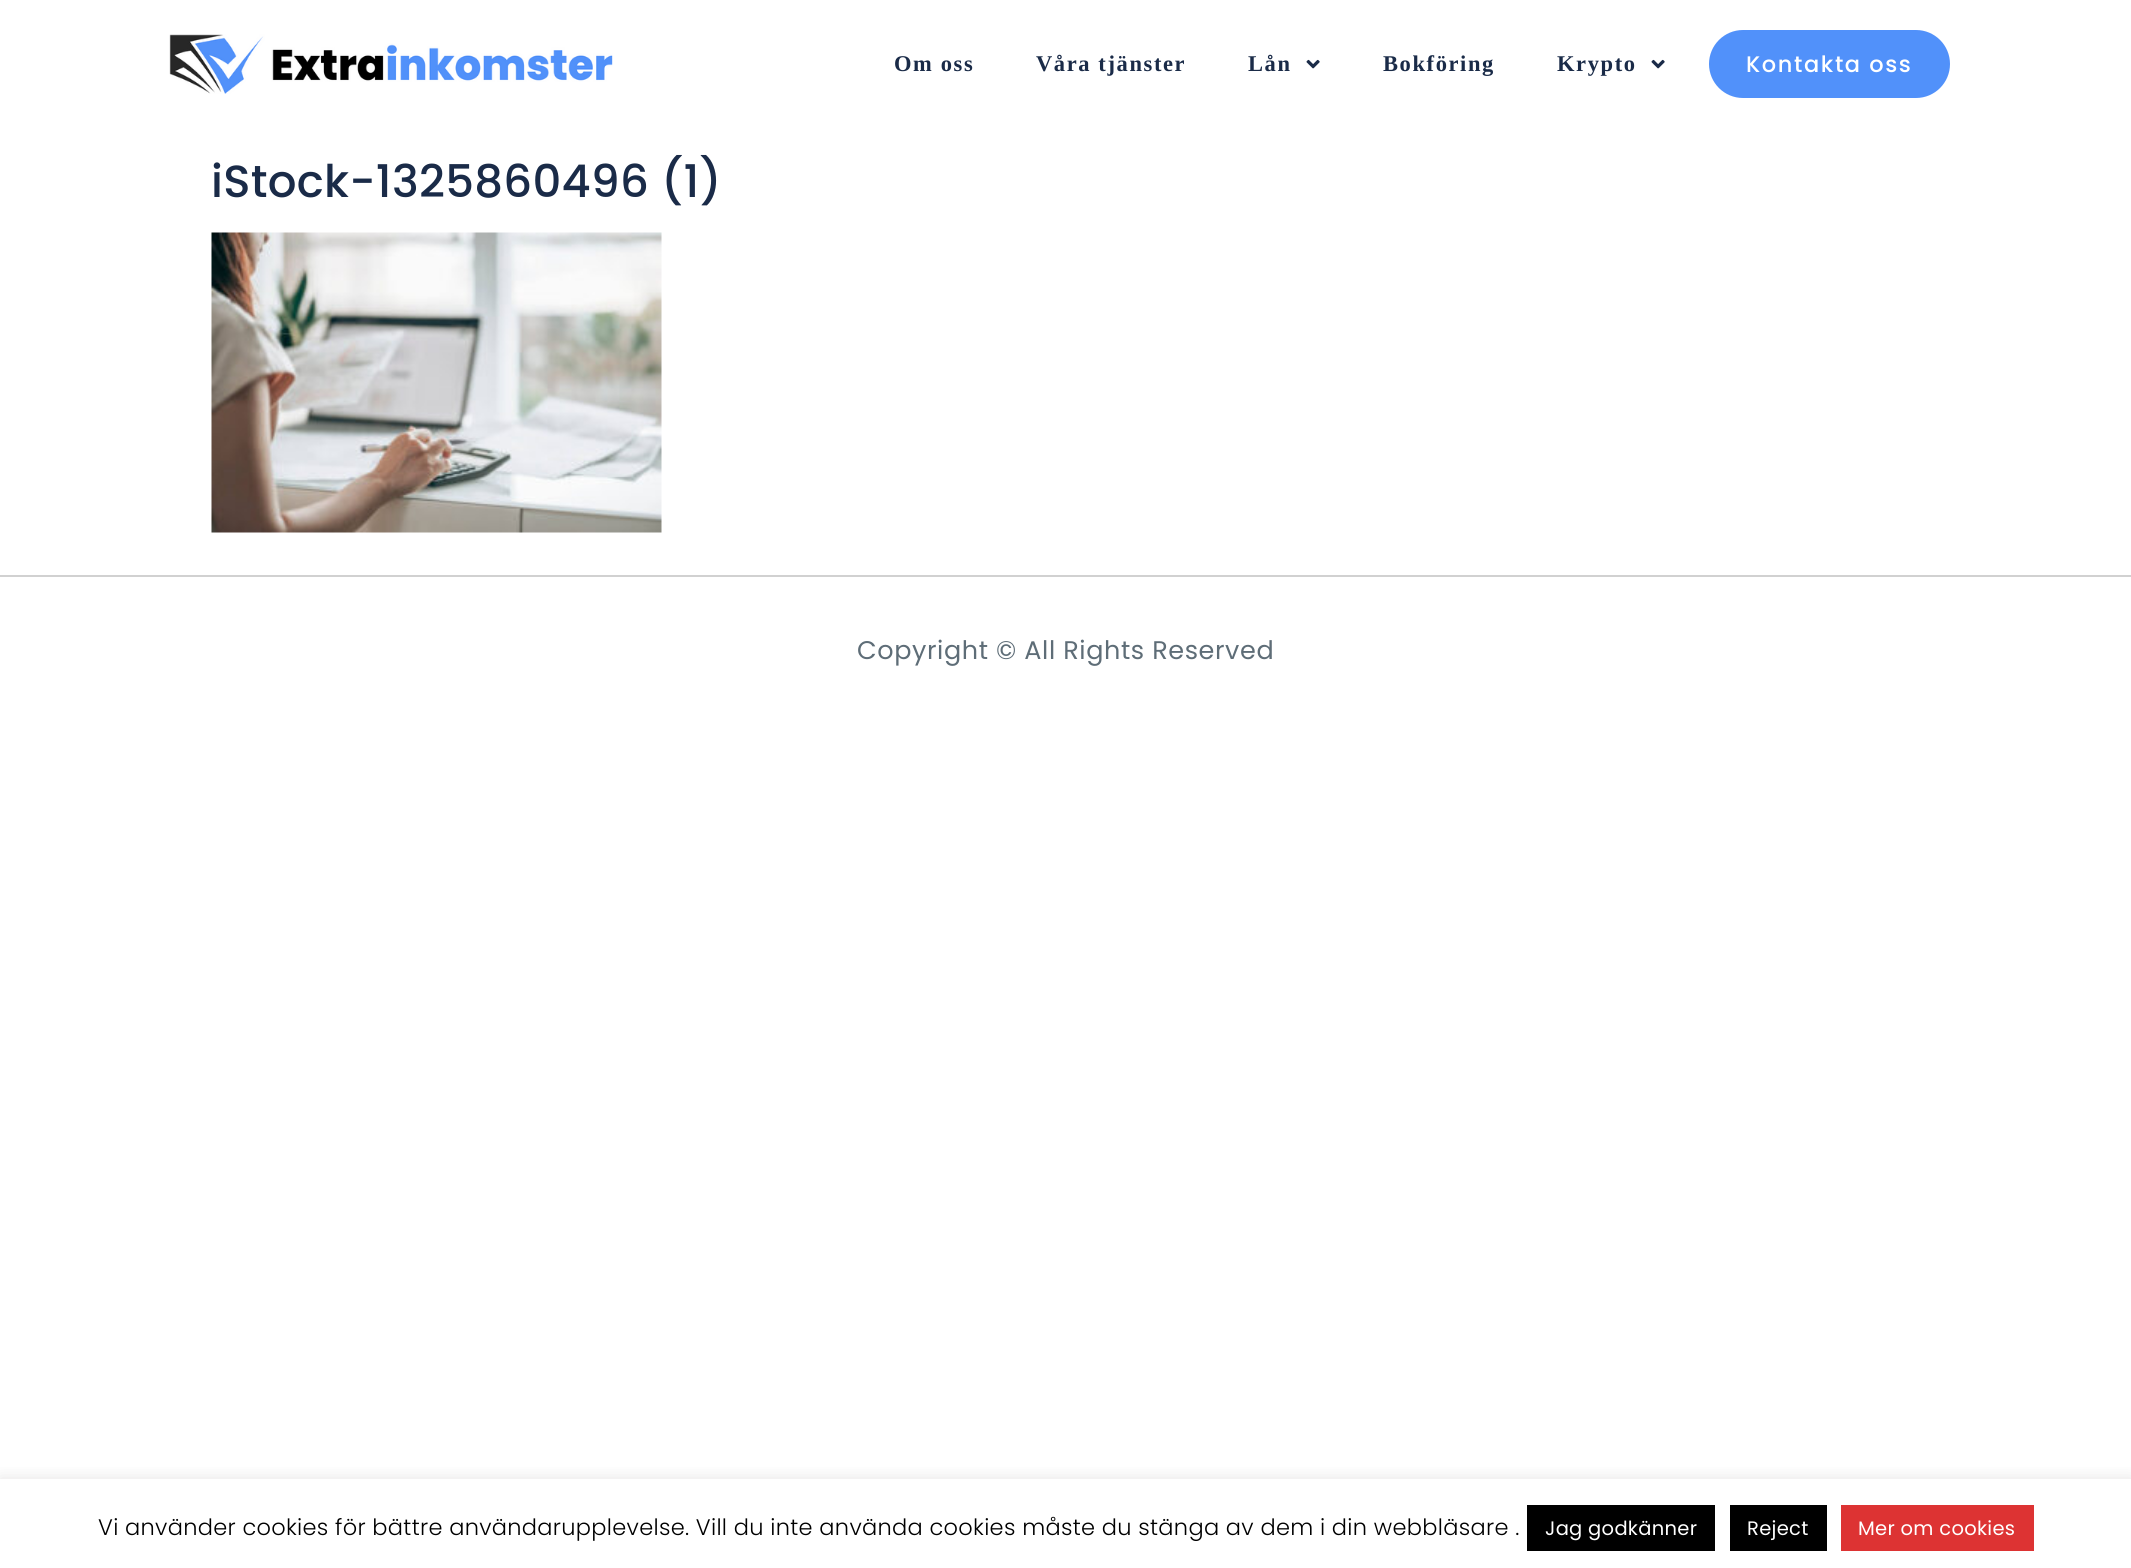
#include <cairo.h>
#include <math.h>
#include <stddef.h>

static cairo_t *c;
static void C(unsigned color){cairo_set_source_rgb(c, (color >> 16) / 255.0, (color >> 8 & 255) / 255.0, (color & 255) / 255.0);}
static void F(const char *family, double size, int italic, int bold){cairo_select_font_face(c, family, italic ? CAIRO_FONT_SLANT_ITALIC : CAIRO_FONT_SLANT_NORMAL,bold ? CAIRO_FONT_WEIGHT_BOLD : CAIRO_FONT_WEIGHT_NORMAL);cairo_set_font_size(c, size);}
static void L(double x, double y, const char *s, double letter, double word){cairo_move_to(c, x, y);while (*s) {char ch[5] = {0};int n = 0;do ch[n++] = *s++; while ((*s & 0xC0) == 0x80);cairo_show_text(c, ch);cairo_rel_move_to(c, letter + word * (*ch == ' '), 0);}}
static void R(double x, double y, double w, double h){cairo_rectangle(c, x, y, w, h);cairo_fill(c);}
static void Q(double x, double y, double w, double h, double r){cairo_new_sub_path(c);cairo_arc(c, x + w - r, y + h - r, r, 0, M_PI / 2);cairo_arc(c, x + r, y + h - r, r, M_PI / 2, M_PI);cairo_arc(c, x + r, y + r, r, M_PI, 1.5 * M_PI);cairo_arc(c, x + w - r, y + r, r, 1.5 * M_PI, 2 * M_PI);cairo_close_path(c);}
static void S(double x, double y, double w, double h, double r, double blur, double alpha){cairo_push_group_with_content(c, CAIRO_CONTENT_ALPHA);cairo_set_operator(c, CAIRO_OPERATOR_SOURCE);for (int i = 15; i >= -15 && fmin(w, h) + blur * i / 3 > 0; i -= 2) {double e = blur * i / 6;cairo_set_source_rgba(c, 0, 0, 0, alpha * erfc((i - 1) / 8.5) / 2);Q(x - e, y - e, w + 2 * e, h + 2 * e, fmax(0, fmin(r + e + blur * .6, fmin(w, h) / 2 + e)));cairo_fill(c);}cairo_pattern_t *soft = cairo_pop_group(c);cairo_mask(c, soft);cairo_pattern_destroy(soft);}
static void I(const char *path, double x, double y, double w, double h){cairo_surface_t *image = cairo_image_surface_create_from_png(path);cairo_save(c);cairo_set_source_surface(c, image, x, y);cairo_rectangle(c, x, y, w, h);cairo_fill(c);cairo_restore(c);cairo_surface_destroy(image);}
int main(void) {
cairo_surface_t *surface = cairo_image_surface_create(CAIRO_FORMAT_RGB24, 2131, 1568);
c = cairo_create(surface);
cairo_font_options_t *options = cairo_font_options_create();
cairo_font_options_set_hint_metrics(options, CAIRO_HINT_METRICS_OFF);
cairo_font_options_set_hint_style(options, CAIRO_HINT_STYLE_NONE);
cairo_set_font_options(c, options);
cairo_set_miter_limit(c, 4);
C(0xffffff);
cairo_paint(c);
I("1.png",169,34,444,60);
F("Liberation Serif",22.5,0,1);
C(0x1a2b48);
L(894,71,"Om oss",1.6,0);
L(1036,71,"Våra tjänster",1.6,0);
L(1248,71,"Lån",1.6,0);
I("2.png",1306,59,14,10);
L(1383,71,"Bokföring",1.6,0);
L(1557,71,"Krypto",1.6,0);
I("2.png",1651,59,14,10);
C(0x5191fa);
Q(1709,30,241,68,34);
cairo_fill(c);
F("Poppins Medium",22.5,0,0);
C(0xffffff);
L(1746,72,"Kontakta oss",1.6,0);
F("Poppins Medium",45,0,0);
C(0x1a2b48);
L(211,197,"iStock-1325860496 (1)",.3,0);
I("3.png",211,232,451,301);
C(0xd1d1d1);
R(0,575,2131,2);
F("Poppins",25.5,0,0);
C(0x5e6d77);
L(857,659,"Copyright © All Rights Reserved",.6,0);
cairo_save(c);
cairo_rectangle(c,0,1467,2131,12);
cairo_clip(c);
C(0xacabab);
S(0,1478,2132,90,0,7.5,.3);
cairo_restore(c);
F("Poppins Light",22.5,0,0);
C(0x000000);
L(98,1535,"Vi använder cookies för bättre användarupplevelse. Vill du inte använda cookies måste du stänga av dem i din webbläsare .",.3,0);
R(1527,1505,188,46);
F("Poppins",19.5,0,0);
C(0xffffff);
L(1545,1535,"Jag godkänner",.3,0);
C(0x000000);
R(1730,1505,97,46);
C(0xffffff);
L(1747,1535,"Reject",.3,0);
C(0xdd3333);
R(1841,1505,193,46);
C(0xffffff);
L(1858,1535,"Mer om cookies",.3,0);
cairo_surface_write_to_png(surface, "o.png");
cairo_font_options_destroy(options);
cairo_destroy(c);
cairo_surface_destroy(surface);
return 0;
}
